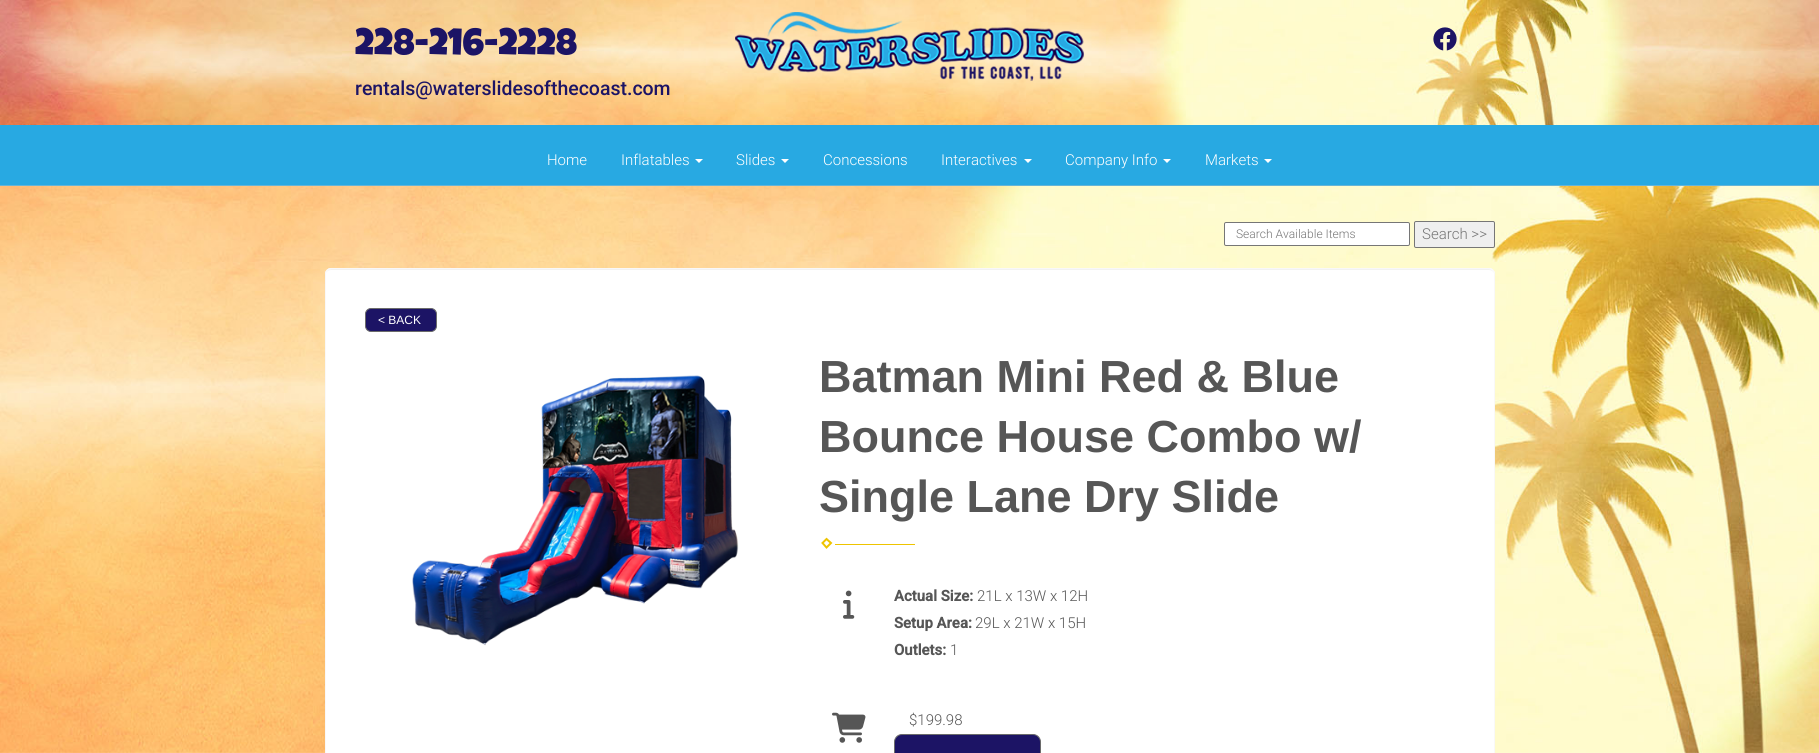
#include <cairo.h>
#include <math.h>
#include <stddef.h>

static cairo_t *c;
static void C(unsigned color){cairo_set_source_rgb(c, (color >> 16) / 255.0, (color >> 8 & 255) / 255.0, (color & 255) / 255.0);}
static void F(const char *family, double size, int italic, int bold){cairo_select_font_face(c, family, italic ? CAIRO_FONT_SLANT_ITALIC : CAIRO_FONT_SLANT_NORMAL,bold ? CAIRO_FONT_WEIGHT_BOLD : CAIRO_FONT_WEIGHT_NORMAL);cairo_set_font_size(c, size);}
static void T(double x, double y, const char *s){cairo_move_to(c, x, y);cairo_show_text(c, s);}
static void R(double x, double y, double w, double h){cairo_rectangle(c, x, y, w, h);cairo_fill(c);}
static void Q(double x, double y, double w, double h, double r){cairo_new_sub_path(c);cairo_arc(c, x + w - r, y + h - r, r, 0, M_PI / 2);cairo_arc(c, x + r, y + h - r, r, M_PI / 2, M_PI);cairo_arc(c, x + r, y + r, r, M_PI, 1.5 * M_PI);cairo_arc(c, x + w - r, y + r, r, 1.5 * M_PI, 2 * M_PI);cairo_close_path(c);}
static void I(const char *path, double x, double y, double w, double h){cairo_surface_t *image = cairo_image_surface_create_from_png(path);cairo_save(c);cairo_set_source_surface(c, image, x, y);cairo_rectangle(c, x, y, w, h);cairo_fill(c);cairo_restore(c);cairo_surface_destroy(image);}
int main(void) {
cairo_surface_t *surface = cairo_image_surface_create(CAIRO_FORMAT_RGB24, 1819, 753);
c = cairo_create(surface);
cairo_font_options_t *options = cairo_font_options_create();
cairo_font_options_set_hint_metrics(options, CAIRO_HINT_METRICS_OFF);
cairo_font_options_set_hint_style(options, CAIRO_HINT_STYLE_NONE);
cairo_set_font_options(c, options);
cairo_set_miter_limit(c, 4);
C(0xffffff);
cairo_paint(c);
I("1.png",0,186,1819,567);
I("2.png",0,0,1819,125);
F("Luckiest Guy",37.5,0,0);
C(0x1c1465);
T(355,55,"228-216-2228");
F("Roboto Medium",19.5,0,0);
T(355,95,"rentals@waterslidesofthecoast.com");
I("3.png",735,12,349,69);
I("4.png",1433,27,24,24);
C(0x28a9e2);
R(0,125,1819,60);
C(0x67b4d6);
R(0,185,1819,1);
F("Roboto Light",15,0,0);
C(0xffffff);
T(547,165,"Home");
T(621,165,"Inflatables");
cairo_new_path(c);
cairo_move_to(c,695,159);
cairo_line_to(c,703,159);
cairo_line_to(c,699,163);
cairo_close_path(c);
cairo_fill(c);
T(736,165,"Slides");
cairo_new_path(c);
cairo_move_to(c,781,159);
cairo_line_to(c,789,159);
cairo_line_to(c,785,163);
cairo_close_path(c);
cairo_fill(c);
T(823,165,"Concessions");
T(941,165,"Interactives");
cairo_new_path(c);
cairo_move_to(c,1024,159);
cairo_line_to(c,1032,159);
cairo_line_to(c,1028,163);
cairo_close_path(c);
cairo_fill(c);
T(1065,165,"Company Info");
cairo_new_path(c);
cairo_move_to(c,1163,159);
cairo_line_to(c,1171,159);
cairo_line_to(c,1167,163);
cairo_close_path(c);
cairo_fill(c);
T(1205,165,"Markets");
cairo_new_path(c);
cairo_move_to(c,1264,159);
cairo_line_to(c,1272,159);
cairo_line_to(c,1268,163);
cairo_close_path(c);
cairo_fill(c);
Q(1224.5,222.5,185,23,1.5);
cairo_fill_preserve(c);
C(0x767676);
cairo_set_line_width(c,1);
cairo_stroke(c);
F("Roboto Light",12,0,0);
C(0x757575);
T(1236,238,"Search Available Items");
C(0xefefef);
Q(1414.5,221.5,80,26,1.5);
cairo_fill_preserve(c);
C(0x767676);
cairo_stroke(c);
F("Roboto Light",15,0,0);
C(0x757575);
T(1422,239,"Search >>");
C(0xffffff);
Q(325,268,1170,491,6);
cairo_fill(c);
C(0xf2f2f2);
cairo_new_path(c);
cairo_move_to(c,331,270);
cairo_line_to(c,1489,270);
cairo_curve_to(c,1492,270,1494,272,1494,275);
cairo_curve_to(c,1494,272,1492,269,1489,269);
cairo_line_to(c,331,269);
cairo_curve_to(c,328,269,326,272,326,275);
cairo_curve_to(c,326,272,328,270,331,270);
cairo_close_path(c);
cairo_fill(c);
Q(325.5,268.5,1169,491,5.5);
C(0xf9f8f8);
cairo_stroke(c);
C(0x1c1465);
Q(365.5,308.5,71,23,5.5);
cairo_fill_preserve(c);
C(0x6b6b6b);
cairo_stroke(c);
F("Liberation Sans",12,0,0);
C(0xffffff);
T(378,324,"< BACK");
I("5.png",412,375,327,271);
F("Liberation Sans",45,0,1);
C(0x565656);
T(819,392,"Batman Mini Red & Blue");
T(819,452,"Bounce House Combo w/");
T(819,512,"Single Lane Dry Slide");
cairo_new_path(c);
cairo_move_to(c,826.5,539);
cairo_line_to(c,831,543);
cairo_line_to(c,826.5,547.5);
cairo_line_to(c,822.5,543);
cairo_close_path(c);
C(0xeec400);
cairo_set_line_width(c,2);
cairo_stroke(c);
R(835,544,80,1);
I("6.png",843,590,12,29);
F("Roboto",15,0,1);
C(0x565656);
T(894,601,"Actual Size:");
F("Roboto Light",15,0,0);
T(977,601,"21L x 13W x 12H");
F("Roboto",15,0,1);
T(894,628,"Setup Area:");
F("Roboto Light",15,0,0);
T(975,628,"29L x 21W x 15H");
F("Roboto",15,0,1);
T(894,655,"Outlets:");
F("Roboto Light",15,0,0);
T(950,655,"1");
I("7.png",832,712,34,31);
T(909,725,"$199.98");
C(0x1c1465);
Q(894.5,734.5,146,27,7.5);
cairo_fill_preserve(c);
C(0x6b6b6b);
cairo_set_line_width(c,1);
cairo_stroke(c);
cairo_surface_write_to_png(surface, "o.png");
cairo_font_options_destroy(options);
cairo_destroy(c);
cairo_surface_destroy(surface);
return 0;
}
